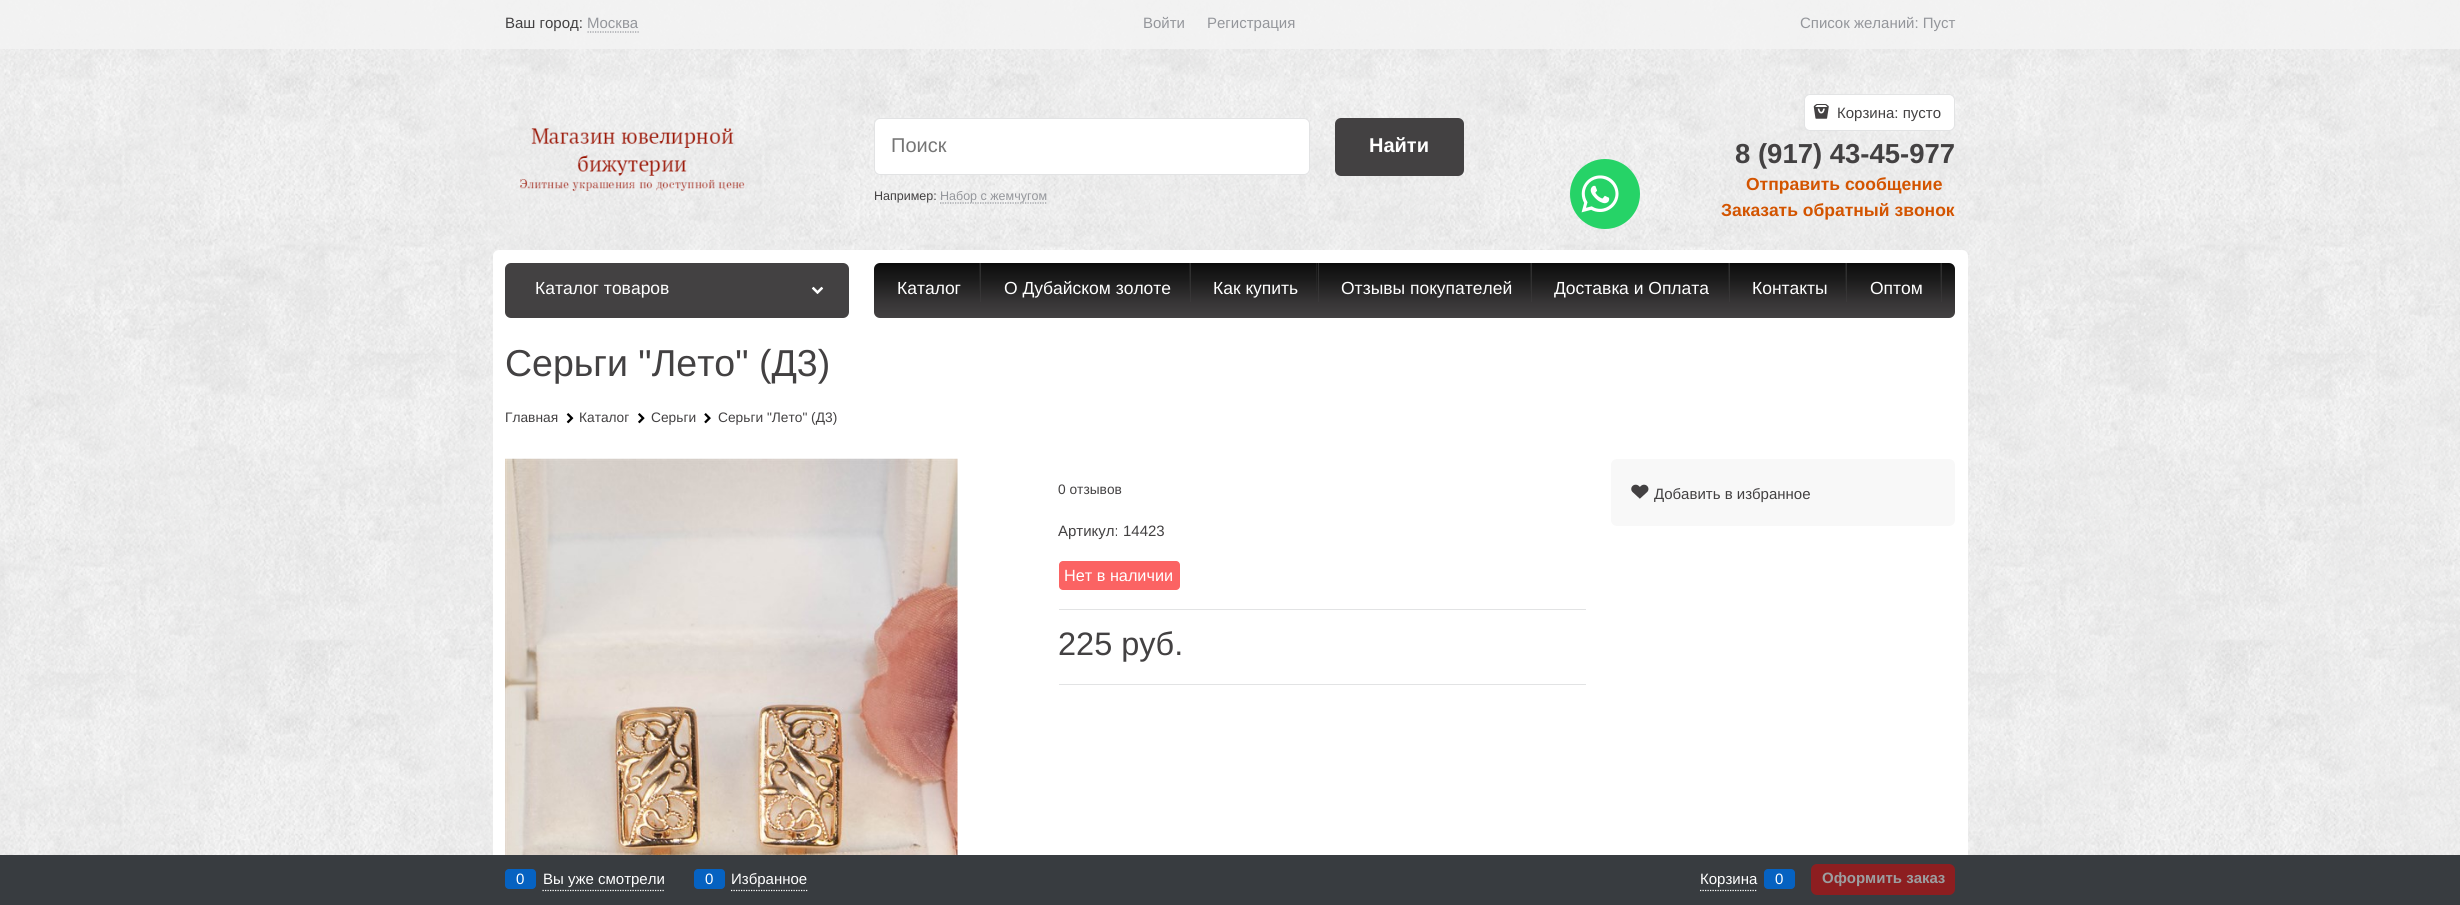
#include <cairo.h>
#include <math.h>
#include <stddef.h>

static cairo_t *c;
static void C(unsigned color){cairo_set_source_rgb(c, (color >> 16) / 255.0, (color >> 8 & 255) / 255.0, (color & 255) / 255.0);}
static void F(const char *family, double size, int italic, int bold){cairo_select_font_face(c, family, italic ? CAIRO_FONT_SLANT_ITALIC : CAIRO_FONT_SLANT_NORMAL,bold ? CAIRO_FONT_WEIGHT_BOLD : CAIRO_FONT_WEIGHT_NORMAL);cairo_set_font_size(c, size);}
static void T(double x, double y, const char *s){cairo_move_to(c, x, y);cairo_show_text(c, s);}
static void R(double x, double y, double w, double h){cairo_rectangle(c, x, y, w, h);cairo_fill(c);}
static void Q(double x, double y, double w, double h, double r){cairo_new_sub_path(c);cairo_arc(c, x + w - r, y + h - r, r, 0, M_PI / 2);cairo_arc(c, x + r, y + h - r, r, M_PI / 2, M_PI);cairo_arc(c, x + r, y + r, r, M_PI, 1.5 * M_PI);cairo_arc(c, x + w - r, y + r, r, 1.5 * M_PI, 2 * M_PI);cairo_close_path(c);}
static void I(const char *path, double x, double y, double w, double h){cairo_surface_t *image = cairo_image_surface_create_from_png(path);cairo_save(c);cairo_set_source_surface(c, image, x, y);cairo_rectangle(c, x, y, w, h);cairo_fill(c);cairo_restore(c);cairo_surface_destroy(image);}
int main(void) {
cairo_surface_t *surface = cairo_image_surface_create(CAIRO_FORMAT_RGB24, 2460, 905);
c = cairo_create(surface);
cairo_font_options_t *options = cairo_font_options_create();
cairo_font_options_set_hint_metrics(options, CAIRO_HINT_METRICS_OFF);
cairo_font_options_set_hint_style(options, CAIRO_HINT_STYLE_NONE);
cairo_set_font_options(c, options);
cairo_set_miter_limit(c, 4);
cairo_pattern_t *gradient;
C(0xffffff);
cairo_paint(c);
I("1.png",0,0,2460,855);
cairo_set_source_rgba(c,0.953,0.953,0.953,0.9);
R(0,0,2460,49);
F("Liberation Sans",15,0,0);
C(0x434142);
T(505,28,"Ваш город:");
C(0x94969b);
T(587,28,"Москва");
cairo_new_path(c);
cairo_move_to(c,587.5,32);
cairo_line_to(c,639,32);
cairo_set_line_width(c,1.2);
cairo_set_dash(c,(double[]){1.25,1.25},2,0);
cairo_stroke(c);
T(1143,28,"Войти");
T(1207,28,"Регистрация");
T(1800,28,"Список желаний: Пуст");
I("2.png",520,128,225,63);
C(0xffffff);
Q(874.5,118.5,435,56,5.5);
cairo_fill_preserve(c);
C(0xe2e3e4);
cairo_set_line_width(c,1);
cairo_set_dash(c,NULL,0,0);
cairo_stroke(c);
F("Liberation Sans",20,0,0);
C(0x757575);
T(891,152,"Поиск");
F("Liberation Sans",12.5,0,0);
C(0x434142);
T(874,200,"Например:");
cairo_new_path(c);
cairo_move_to(c,940,203);
cairo_line_to(c,1047.5,203);
C(0x94969b);
cairo_set_line_width(c,1.2);
cairo_set_dash(c,(double[]){1.25,1.25},2,0);
cairo_stroke(c);
T(940,200,"Набор с жемчугом");
C(0x434142);
Q(1335,118,129,58,6);
cairo_fill(c);
F("Liberation Sans",20,0,1);
C(0xffffff);
T(1369,152,"Найти");
Q(1804.5,94.5,150,36,5.5);
cairo_fill_preserve(c);
C(0xe2e3e4);
cairo_set_line_width(c,1);
cairo_set_dash(c,NULL,0,0);
cairo_stroke(c);
I("3.png",1813,104,16,15);
F("Liberation Sans",15,0,0);
C(0x434142);
T(1837,118,"Корзина: пусто");
F("Liberation Sans",27.5,0,1);
T(1735,163,"8 (917) 43-45-977");
C(0x26d367);
cairo_new_path(c);
cairo_arc(c,1605,194,35,0,2 * M_PI);
cairo_fill(c);
I("4.png",1581,175,38,38);
F("Liberation Sans",17.5,0,1);
C(0xd35400);
T(1746,190,"Отправить сообщение");
T(1721,216,"Заказать обратный звонок");
C(0xffffff);
Q(493,250,1475,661,6);
cairo_fill(c);
C(0x434142);
Q(505,263,344,55,6);
cairo_fill(c);
F("Liberation Sans",17.5,0,0);
C(0xffffff);
T(535,294,"Каталог товаров");
I("5.png",811,286,13,8);
gradient = cairo_pattern_create_linear(1414,262,1414,318);
cairo_pattern_add_color_stop_rgba(gradient,0,0.031,0.031,0.031,1);
cairo_pattern_add_color_stop_rgba(gradient,.08,0.063,0.063,0.063,1);
cairo_pattern_add_color_stop_rgba(gradient,.31,0.106,0.106,0.106,1);
cairo_pattern_add_color_stop_rgba(gradient,.72,0.216,0.208,0.212,1);
cairo_pattern_add_color_stop_rgba(gradient,1,0.263,0.255,0.259,1);
cairo_set_source(c,gradient);
cairo_pattern_destroy(gradient);
Q(874,263,1081,55,6);
cairo_fill(c);
C(0xffffff);
T(897,294,"Каталог");
gradient = cairo_pattern_create_linear(981,263,981,318);
cairo_pattern_add_color_stop_rgba(gradient,0,1,1,1,.14);
cairo_pattern_add_color_stop_rgba(gradient,.72,1,1,1,.02);
cairo_pattern_add_color_stop_rgba(gradient,1,1,1,1,0);
cairo_set_source(c,gradient);
cairo_pattern_destroy(gradient);
R(980,263,1,39);
gradient = cairo_pattern_create_linear(979,263,979,318);
cairo_pattern_add_color_stop_rgba(gradient,0,0.224,0.224,0.224,.39);
cairo_pattern_add_color_stop_rgba(gradient,.17,0.224,0.224,0.224,.33);
cairo_pattern_add_color_stop_rgba(gradient,.61,0.224,0.224,0.224,.12);
cairo_pattern_add_color_stop_rgba(gradient,.96,0.224,0.224,0.224,.01);
cairo_pattern_add_color_stop_rgba(gradient,.98,1,1,1,.01);
cairo_pattern_add_color_stop_rgba(gradient,1,1,1,1,0);
cairo_set_source(c,gradient);
cairo_pattern_destroy(gradient);
R(979,263,1,28);
C(0xffffff);
T(1004,294,"О Дубайском золоте");
gradient = cairo_pattern_create_linear(1191,263,1191,318);
cairo_pattern_add_color_stop_rgba(gradient,0,1,1,1,.14);
cairo_pattern_add_color_stop_rgba(gradient,.72,1,1,1,.02);
cairo_pattern_add_color_stop_rgba(gradient,1,1,1,1,0);
cairo_set_source(c,gradient);
cairo_pattern_destroy(gradient);
R(1190,263,1,39);
gradient = cairo_pattern_create_linear(1189,263,1189,318);
cairo_pattern_add_color_stop_rgba(gradient,0,0.224,0.224,0.224,.39);
cairo_pattern_add_color_stop_rgba(gradient,.17,0.224,0.224,0.224,.33);
cairo_pattern_add_color_stop_rgba(gradient,.61,0.224,0.224,0.224,.12);
cairo_pattern_add_color_stop_rgba(gradient,.96,0.224,0.224,0.224,.01);
cairo_pattern_add_color_stop_rgba(gradient,.98,1,1,1,.01);
cairo_pattern_add_color_stop_rgba(gradient,1,1,1,1,0);
cairo_set_source(c,gradient);
cairo_pattern_destroy(gradient);
R(1189,263,1,28);
C(0xffffff);
T(1213,294,"Как купить");
gradient = cairo_pattern_create_linear(1318,263,1318,318);
cairo_pattern_add_color_stop_rgba(gradient,0,1,1,1,.14);
cairo_pattern_add_color_stop_rgba(gradient,.72,1,1,1,.02);
cairo_pattern_add_color_stop_rgba(gradient,1,1,1,1,0);
cairo_set_source(c,gradient);
cairo_pattern_destroy(gradient);
R(1318,263,1,39);
gradient = cairo_pattern_create_linear(1317,263,1317,318);
cairo_pattern_add_color_stop_rgba(gradient,0,0.224,0.224,0.224,.39);
cairo_pattern_add_color_stop_rgba(gradient,.17,0.224,0.224,0.224,.33);
cairo_pattern_add_color_stop_rgba(gradient,.61,0.224,0.224,0.224,.12);
cairo_pattern_add_color_stop_rgba(gradient,.96,0.224,0.224,0.224,.01);
cairo_pattern_add_color_stop_rgba(gradient,.98,1,1,1,.01);
cairo_pattern_add_color_stop_rgba(gradient,1,1,1,1,0);
cairo_set_source(c,gradient);
cairo_pattern_destroy(gradient);
R(1316,263,1,28);
C(0xffffff);
T(1341,294,"Отзывы покупателей");
gradient = cairo_pattern_create_linear(1532,263,1532,318);
cairo_pattern_add_color_stop_rgba(gradient,0,1,1,1,.14);
cairo_pattern_add_color_stop_rgba(gradient,.72,1,1,1,.02);
cairo_pattern_add_color_stop_rgba(gradient,1,1,1,1,0);
cairo_set_source(c,gradient);
cairo_pattern_destroy(gradient);
R(1531,263,1,39);
gradient = cairo_pattern_create_linear(1531,263,1531,318);
cairo_pattern_add_color_stop_rgba(gradient,0,0.224,0.224,0.224,.39);
cairo_pattern_add_color_stop_rgba(gradient,.17,0.224,0.224,0.224,.33);
cairo_pattern_add_color_stop_rgba(gradient,.61,0.224,0.224,0.224,.12);
cairo_pattern_add_color_stop_rgba(gradient,.96,0.224,0.224,0.224,.01);
cairo_pattern_add_color_stop_rgba(gradient,.98,1,1,1,.01);
cairo_pattern_add_color_stop_rgba(gradient,1,1,1,1,0);
cairo_set_source(c,gradient);
cairo_pattern_destroy(gradient);
R(1530,263,1,28);
C(0xffffff);
T(1554,294,"Доставка и Оплата");
gradient = cairo_pattern_create_linear(1729,263,1729,318);
cairo_pattern_add_color_stop_rgba(gradient,0,1,1,1,.14);
cairo_pattern_add_color_stop_rgba(gradient,.72,1,1,1,.02);
cairo_pattern_add_color_stop_rgba(gradient,1,1,1,1,0);
cairo_set_source(c,gradient);
cairo_pattern_destroy(gradient);
R(1729,263,1,39);
gradient = cairo_pattern_create_linear(1728,263,1728,318);
cairo_pattern_add_color_stop_rgba(gradient,0,0.224,0.224,0.224,.39);
cairo_pattern_add_color_stop_rgba(gradient,.17,0.224,0.224,0.224,.33);
cairo_pattern_add_color_stop_rgba(gradient,.61,0.224,0.224,0.224,.12);
cairo_pattern_add_color_stop_rgba(gradient,.96,0.224,0.224,0.224,.01);
cairo_pattern_add_color_stop_rgba(gradient,.98,1,1,1,.01);
cairo_pattern_add_color_stop_rgba(gradient,1,1,1,1,0);
cairo_set_source(c,gradient);
cairo_pattern_destroy(gradient);
R(1728,263,1,28);
C(0xffffff);
T(1752,294,"Контакты");
gradient = cairo_pattern_create_linear(1847,263,1847,318);
cairo_pattern_add_color_stop_rgba(gradient,0,1,1,1,.14);
cairo_pattern_add_color_stop_rgba(gradient,.72,1,1,1,.02);
cairo_pattern_add_color_stop_rgba(gradient,1,1,1,1,0);
cairo_set_source(c,gradient);
cairo_pattern_destroy(gradient);
R(1846,263,1,39);
gradient = cairo_pattern_create_linear(1846,263,1846,318);
cairo_pattern_add_color_stop_rgba(gradient,0,0.224,0.224,0.224,.39);
cairo_pattern_add_color_stop_rgba(gradient,.17,0.224,0.224,0.224,.33);
cairo_pattern_add_color_stop_rgba(gradient,.61,0.224,0.224,0.224,.12);
cairo_pattern_add_color_stop_rgba(gradient,.96,0.224,0.224,0.224,.01);
cairo_pattern_add_color_stop_rgba(gradient,.98,1,1,1,.01);
cairo_pattern_add_color_stop_rgba(gradient,1,1,1,1,0);
cairo_set_source(c,gradient);
cairo_pattern_destroy(gradient);
R(1845,263,1,28);
C(0xffffff);
T(1870,294,"Оптом");
gradient = cairo_pattern_create_linear(1942,263,1942,318);
cairo_pattern_add_color_stop_rgba(gradient,0,1,1,1,.14);
cairo_pattern_add_color_stop_rgba(gradient,.72,1,1,1,.02);
cairo_pattern_add_color_stop_rgba(gradient,1,1,1,1,0);
cairo_set_source(c,gradient);
cairo_pattern_destroy(gradient);
R(1941,263,1,39);
gradient = cairo_pattern_create_linear(1941,263,1941,318);
cairo_pattern_add_color_stop_rgba(gradient,0,0.224,0.224,0.224,.39);
cairo_pattern_add_color_stop_rgba(gradient,.17,0.224,0.224,0.224,.33);
cairo_pattern_add_color_stop_rgba(gradient,.61,0.224,0.224,0.224,.12);
cairo_pattern_add_color_stop_rgba(gradient,.96,0.224,0.224,0.224,.01);
cairo_pattern_add_color_stop_rgba(gradient,.98,1,1,1,.01);
cairo_pattern_add_color_stop_rgba(gradient,1,1,1,1,0);
cairo_set_source(c,gradient);
cairo_pattern_destroy(gradient);
R(1940,263,1,28);
F("Liberation Sans",37.5,0,0);
C(0x434142);
T(505,376,"Серьги \"Лето\" (Д3)");
F("Liberation Sans",13.75,0,0);
T(505,422,"Главная");
I("6.png",566,413,8,11);
T(579,422,"Каталог");
I("7.png",638,413,7,11);
T(651,422,"Серьги");
I("8.png",704,413,7,11);
T(718,422,"Серьги \"Лето\" (Д3)");
I("9.png",505,458,453,397);
T(1058,494,"0 отзывов");
F("Liberation Sans",15,0,0);
T(1058,536,"Артикул:");
T(1123,536,"14423");
C(0xfb6363);
Q(1059,561,121,29,4);
cairo_fill(c);
F("Liberation Sans",16.25,0,0);
C(0xffffff);
T(1064,581,"Нет в наличии");
C(0xe2e3e4);
R(1059,609,527,1);
R(1059,684,527,1);
F("Liberation Sans",32.5,0,0);
C(0x434142);
T(1058,655,"225 руб.");
C(0xf8f8f8);
Q(1611,459,344,67,6);
cairo_fill(c);
I("10.png",1631,484,18,15);
F("Liberation Sans",15,0,0);
C(0x434142);
T(1654,499,"Добавить в избранное");
C(0x383c40);
R(0,855,2460,50);
cairo_new_path(c);
cairo_move_to(c,542.5,890.5);
cairo_line_to(c,664,890.5);
C(0xffffff);
cairo_set_line_width(c,1.2);
cairo_set_dash(c,(double[]){1.25,1.25},2,0);
cairo_stroke(c);
C(0x0662c1);
Q(505,869,31,20,4);
cairo_fill(c);
C(0xffffff);
T(516,884,"0");
T(543,884,"Вы уже смотрели");
cairo_new_path(c);
cairo_move_to(c,731,890.5);
cairo_line_to(c,807.5,890.5);
cairo_stroke(c);
C(0x0662c1);
Q(694,869,31,20,4);
cairo_fill(c);
C(0xffffff);
T(705,884,"0");
T(731,884,"Избранное");
cairo_new_path(c);
cairo_move_to(c,1700,890.5);
cairo_line_to(c,1757.5,890.5);
cairo_stroke(c);
T(1700,884,"Корзина");
C(0x0662c1);
Q(1764,869,31,20,4);
cairo_fill(c);
C(0xffffff);
T(1775,884,"0");
C(0x8d1e20);
Q(1811,864,144,31,6);
cairo_fill(c);
F("Liberation Sans",15,0,1);
C(0x9c9ea0);
T(1822,883,"Оформить заказ");
cairo_surface_write_to_png(surface, "o.png");
cairo_font_options_destroy(options);
cairo_destroy(c);
cairo_surface_destroy(surface);
return 0;
}
